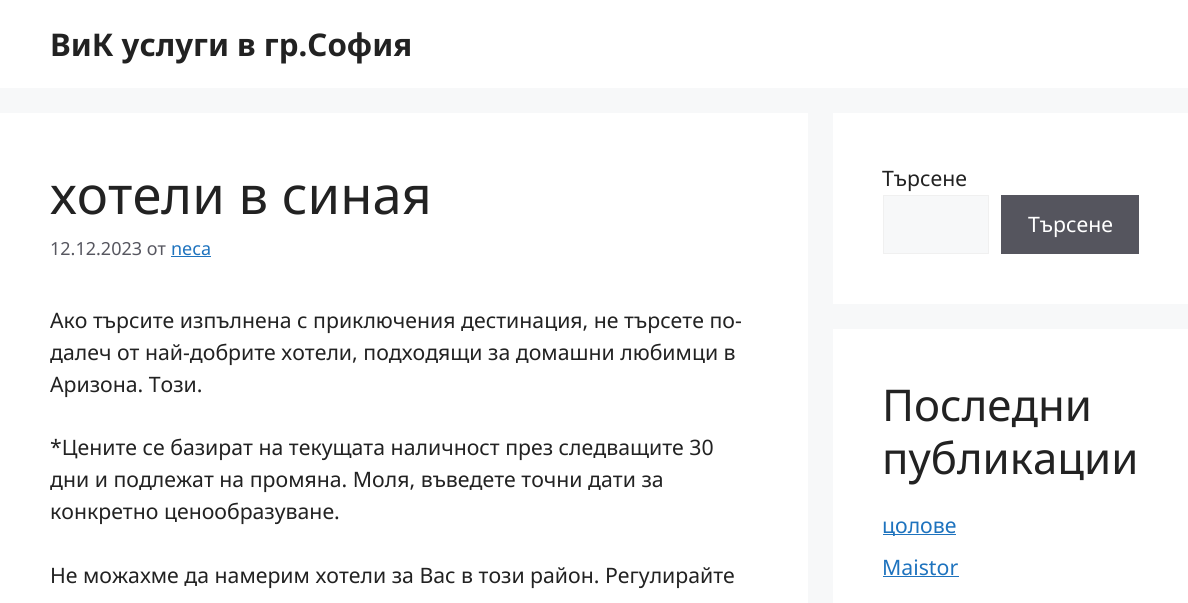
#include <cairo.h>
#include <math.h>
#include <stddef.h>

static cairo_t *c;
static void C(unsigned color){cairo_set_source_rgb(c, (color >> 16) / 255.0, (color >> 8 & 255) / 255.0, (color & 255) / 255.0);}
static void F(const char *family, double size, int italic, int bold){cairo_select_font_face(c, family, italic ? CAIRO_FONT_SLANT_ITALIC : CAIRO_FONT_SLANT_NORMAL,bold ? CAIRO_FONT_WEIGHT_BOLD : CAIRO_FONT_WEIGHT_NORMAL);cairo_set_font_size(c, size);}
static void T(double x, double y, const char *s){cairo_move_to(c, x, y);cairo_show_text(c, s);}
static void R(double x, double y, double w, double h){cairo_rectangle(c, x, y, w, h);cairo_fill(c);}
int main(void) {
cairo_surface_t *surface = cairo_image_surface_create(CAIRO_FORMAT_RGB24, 1188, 603);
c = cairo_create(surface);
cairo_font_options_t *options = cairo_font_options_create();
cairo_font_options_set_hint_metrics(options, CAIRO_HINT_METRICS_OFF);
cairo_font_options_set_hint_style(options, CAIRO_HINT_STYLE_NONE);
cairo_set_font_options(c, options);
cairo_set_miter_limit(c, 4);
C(0xf7f8f9);
cairo_paint(c);
C(0xffffff);
R(0,0,1188,88);
F("Noto Sans",31.25,0,1);
C(0x222222);
T(50,56,"ВиК услуги в гр.София");
C(0xffffff);
R(0,113,808,490);
F("Noto Sans",52.5,0,0);
C(0x222222);
T(50,214,"хотели в синая");
F("Noto Sans",18,0,0);
C(0x575760);
T(50,255,"12.12.2023 от");
C(0x1e73be);
T(171,255,"neca");
R(171,256,40,1);
F("Noto Sans",21.25,0,0);
C(0x222222);
T(50,328,"Ако търсите изпълнена с приключения дестинация, не търсете по-");
T(50,360,"далеч от най-добрите хотели, подходящи за домашни любимци в");
T(50,392,"Аризона. Този.");
T(50,455,"*Цените се базират на текущата наличност през следващите 30");
T(50,487,"дни и подлежат на промяна. Моля, въведете точни дати за");
T(50,519,"конкретно ценообразуване.");
T(50,583,"Не можахме да намерим хотели за Вас в този район. Регулирайте");
C(0xffffff);
R(833,113,355,191);
C(0x222222);
T(882,186,"Търсене");
C(0xf7f8f9);
cairo_rectangle(c,883.5,195.5,105,58);
cairo_fill_preserve(c);
C(0xf0f0f0);
cairo_set_line_width(c,1);
cairo_stroke(c);
C(0x55555e);
R(1001,195,138,59);
C(0xffffff);
T(1028,232,"Търсене");
R(833,329,355,274);
F("Noto Sans",43.75,0,0);
C(0x222222);
T(882,421,"Последни");
T(882,474,"публикации");
C(0x1e73be);
R(883,534,73,1);
F("Noto Sans",21.25,0,0);
T(882,533,"цолове");
T(882,575,"Maistor");
R(883,576,76,1);
cairo_surface_write_to_png(surface, "o.png");
cairo_font_options_destroy(options);
cairo_destroy(c);
cairo_surface_destroy(surface);
return 0;
}
